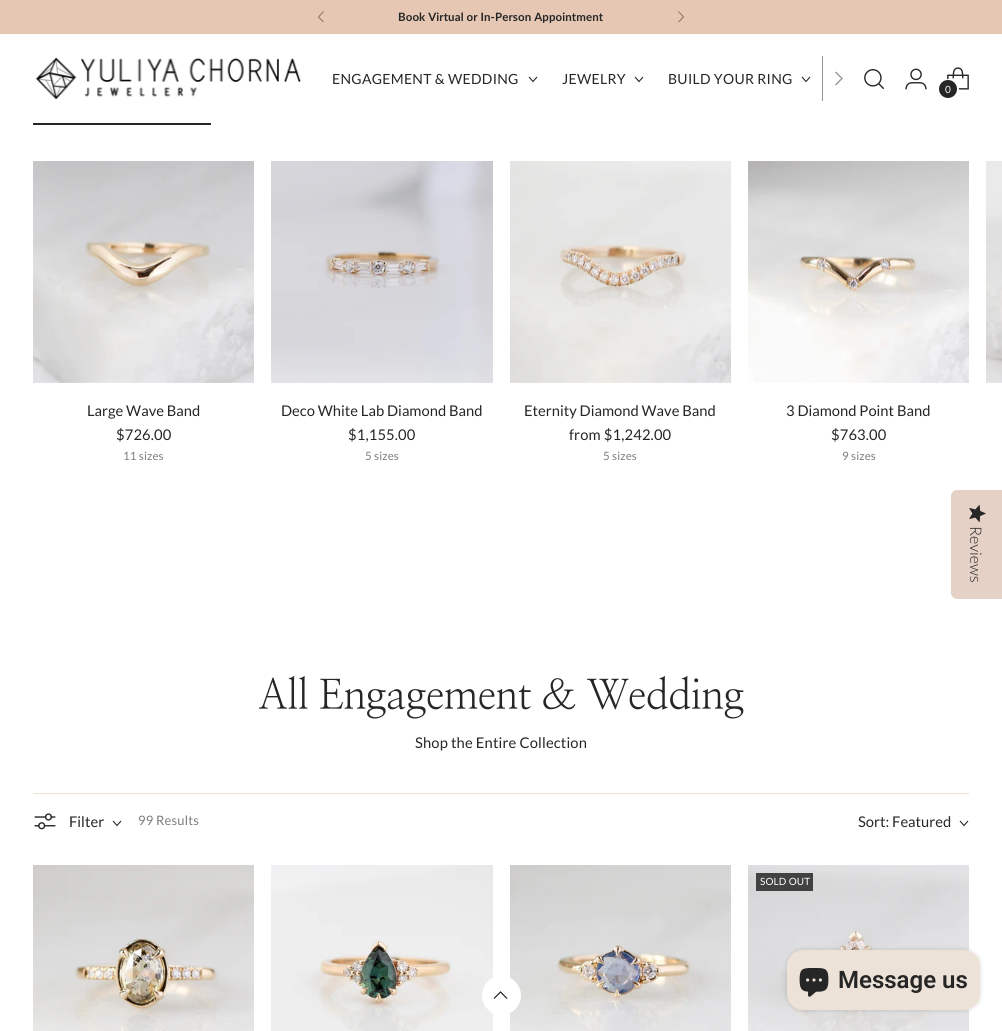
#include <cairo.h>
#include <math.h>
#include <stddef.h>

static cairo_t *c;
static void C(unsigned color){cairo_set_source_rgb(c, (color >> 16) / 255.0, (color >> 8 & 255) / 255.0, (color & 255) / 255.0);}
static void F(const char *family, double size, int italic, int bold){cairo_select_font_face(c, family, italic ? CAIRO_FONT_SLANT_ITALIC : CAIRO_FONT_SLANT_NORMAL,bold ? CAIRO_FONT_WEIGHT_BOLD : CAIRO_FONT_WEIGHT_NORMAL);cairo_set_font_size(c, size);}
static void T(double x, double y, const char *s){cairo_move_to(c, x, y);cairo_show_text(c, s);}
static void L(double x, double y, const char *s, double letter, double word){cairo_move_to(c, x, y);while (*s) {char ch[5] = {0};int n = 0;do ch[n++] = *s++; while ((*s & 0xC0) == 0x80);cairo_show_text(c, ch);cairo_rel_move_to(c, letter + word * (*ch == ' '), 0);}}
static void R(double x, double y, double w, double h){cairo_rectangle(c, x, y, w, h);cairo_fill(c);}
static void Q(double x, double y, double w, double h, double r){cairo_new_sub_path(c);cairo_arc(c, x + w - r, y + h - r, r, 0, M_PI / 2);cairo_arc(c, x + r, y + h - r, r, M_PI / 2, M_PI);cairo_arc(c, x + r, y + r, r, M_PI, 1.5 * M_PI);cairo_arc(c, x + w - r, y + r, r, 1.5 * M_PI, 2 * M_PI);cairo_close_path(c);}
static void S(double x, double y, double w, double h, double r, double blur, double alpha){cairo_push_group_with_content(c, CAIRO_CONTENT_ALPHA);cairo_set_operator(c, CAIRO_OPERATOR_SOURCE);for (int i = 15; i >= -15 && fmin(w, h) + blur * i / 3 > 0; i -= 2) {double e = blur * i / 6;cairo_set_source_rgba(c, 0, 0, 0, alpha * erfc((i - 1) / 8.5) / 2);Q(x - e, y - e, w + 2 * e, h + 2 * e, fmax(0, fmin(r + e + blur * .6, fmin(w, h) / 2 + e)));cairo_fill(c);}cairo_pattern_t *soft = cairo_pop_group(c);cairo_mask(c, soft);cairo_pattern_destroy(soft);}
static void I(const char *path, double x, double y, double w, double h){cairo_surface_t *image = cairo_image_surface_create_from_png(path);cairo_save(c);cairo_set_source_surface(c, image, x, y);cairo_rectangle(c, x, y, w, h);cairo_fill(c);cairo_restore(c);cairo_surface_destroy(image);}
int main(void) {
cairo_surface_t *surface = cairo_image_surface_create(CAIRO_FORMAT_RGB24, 1002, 1031);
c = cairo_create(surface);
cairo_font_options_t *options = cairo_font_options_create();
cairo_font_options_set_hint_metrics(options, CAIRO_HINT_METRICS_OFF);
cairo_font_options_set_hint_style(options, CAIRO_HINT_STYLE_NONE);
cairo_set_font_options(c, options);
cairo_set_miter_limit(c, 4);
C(0xffffff);
cairo_paint(c);
C(0xe6c7b3);
R(0,0,1002,34);
cairo_new_path(c);
cairo_move_to(c,323.5,11.5);
cairo_line_to(c,318.5,17);
cairo_line_to(c,323.5,22);
C(0x86776d);
cairo_set_line_width(c,1);
cairo_stroke(c);
cairo_new_path(c);
cairo_move_to(c,678.5,22);
cairo_line_to(c,683.5,17);
cairo_line_to(c,678.5,11.5);
cairo_stroke(c);
F("Lato",11.5,0,1);
C(0x262626);
L(398,21,"Book Virtual or In-Person Appointment",.1,0);
I("1.png",35,57,266,43);
F("Lato",14,0,0);
L(332,84,"ENGAGEMENT & WEDDING",.3,0);
cairo_new_path(c);
cairo_move_to(c,529,77);
cairo_line_to(c,533,81.5);
cairo_line_to(c,537,77);
cairo_set_line_width(c,1.1);
cairo_stroke(c);
L(562,84,"JEWELRY",.3,0);
cairo_new_path(c);
cairo_move_to(c,635,77);
cairo_line_to(c,639,81.5);
cairo_line_to(c,643,77);
cairo_stroke(c);
L(668,84,"BUILD YOUR RING",.3,0);
cairo_new_path(c);
cairo_move_to(c,802,77);
cairo_line_to(c,806,81.5);
cairo_line_to(c,810,77);
cairo_stroke(c);
C(0x939393);
R(822,56,1,45);
cairo_new_path(c);
cairo_move_to(c,835.5,85);
cairo_line_to(c,842,78.5);
cairo_line_to(c,835.5,72);
cairo_set_line_width(c,1.3);
cairo_stroke(c);
I("2.png",864,69,21,21);
I("3.png",905,68,22,22);
I("4.png",947,67,22,23);
cairo_arc(c,948.5,89.5,9.5,0,2 * M_PI);
C(0xffffff);
cairo_set_line_width(c,2);
cairo_stroke(c);
C(0x262626);
cairo_arc(c,948,89,9,0,2 * M_PI);
cairo_fill(c);
F("Lato",10,0,0);
C(0xffffff);
L(945,93,"0",.15,0);
C(0x262626);
R(33,123,178,2);
I("5.png",986,161,16,222);
I("6.png",33,161,221,222);
F("Lato",14.75,0,0);
T(87,416,"Large Wave Band");
L(116,440,"$726.00",.15,0);
F("Lato",11.5,0,0);
C(0x7d7d7d);
L(123,460,"11 sizes",.1,0);
I("7.png",271,161,222,222);
F("Lato",14.75,0,0);
C(0x262626);
T(281,416,"Deco White Lab Diamond Band");
L(348,440,"$1,155.00",.15,0);
F("Lato",11.5,0,0);
C(0x7d7d7d);
L(365,460,"5 sizes",.1,0);
I("8.png",510,161,221,222);
F("Lato",14.75,0,0);
C(0x262626);
T(524,416,"Eternity Diamond Wave Band");
L(569,440,"from $1,242.00",.15,0);
F("Lato",11.5,0,0);
C(0x7d7d7d);
L(603,460,"5 sizes",.1,0);
I("9.png",748,161,221,222);
F("Lato",14.75,0,0);
C(0x262626);
T(786,416,"3 Diamond Point Band");
L(831,440,"$763.00",.15,0);
F("Lato",11.5,0,0);
C(0x7d7d7d);
L(842,460,"9 sizes",.1,0);
F("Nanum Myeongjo",41.1,0,0);
C(0x262626);
L(258,709,"All Engagement & Wedding",-.6,0);
F("Lato",14.75,0,0);
L(415,748,"Shop the Entire Collection",.15,0);
C(0xece2d7);
R(33,793,936,1);
I("10.png",34,813,22,17);
C(0x262626);
T(69,827,"Filter");
cairo_new_path(c);
cairo_move_to(c,113,821);
cairo_line_to(c,117,825.5);
cairo_line_to(c,121,821);
cairo_set_line_width(c,1.1);
cairo_stroke(c);
F("Lato",13,0,0);
C(0x7d7d7d);
L(138,825,"99 Results",.15,0);
F("Lato",14.75,0,0);
C(0x262626);
T(858,827,"Sort: Featured");
cairo_new_path(c);
cairo_move_to(c,960,821);
cairo_line_to(c,964,825.5);
cairo_line_to(c,968,821);
cairo_stroke(c);
I("11.png",33,865,221,166);
I("12.png",271,865,222,166);
I("13.png",510,865,221,166);
I("14.png",748,865,221,166);
C(0x414141);
R(756,873,57,18);
F("Lato",10,0,0);
C(0xffffff);
L(760,885,"SOLD OUT",.15,0);
cairo_new_path(c);
cairo_arc(c,501.5,995.5,19.5,0,2 * M_PI);
cairo_fill(c);
cairo_new_path(c);
cairo_move_to(c,507,998.5);
cairo_line_to(c,500.5,992);
cairo_line_to(c,494,998.5);
C(0x262626);
cairo_set_line_width(c,1.2);
cairo_stroke(c);
C(0xe5d1c5);
cairo_new_path(c);
cairo_move_to(c,1002,490);
cairo_line_to(c,1002,599);
cairo_line_to(c,957,599);
cairo_curve_to(c,954,599,951,596,951,593);
cairo_line_to(c,951,496);
cairo_curve_to(c,951,493,954,490,957,490);
cairo_close_path(c);
cairo_fill(c);
I("15.png",969,504,17,19);
F("Lato Light",16,0,0);
C(0x262626);
cairo_save(c);
cairo_translate(c,970,526);
cairo_rotate(c,90 * M_PI / 180);
T(0,0,"Reviews");
cairo_restore(c);
C(0x000000);
S(787,950,193,60,16,2.5,.15);
C(0xece2d7);
Q(787,950,193,60,16);
cairo_fill(c);
I("16.png",799,968,30,29);
F("Roboto SemiBold",24,0,0);
C(0x262626);
T(838,988,"Message us");
cairo_surface_write_to_png(surface, "o.png");
cairo_font_options_destroy(options);
cairo_destroy(c);
cairo_surface_destroy(surface);
return 0;
}
